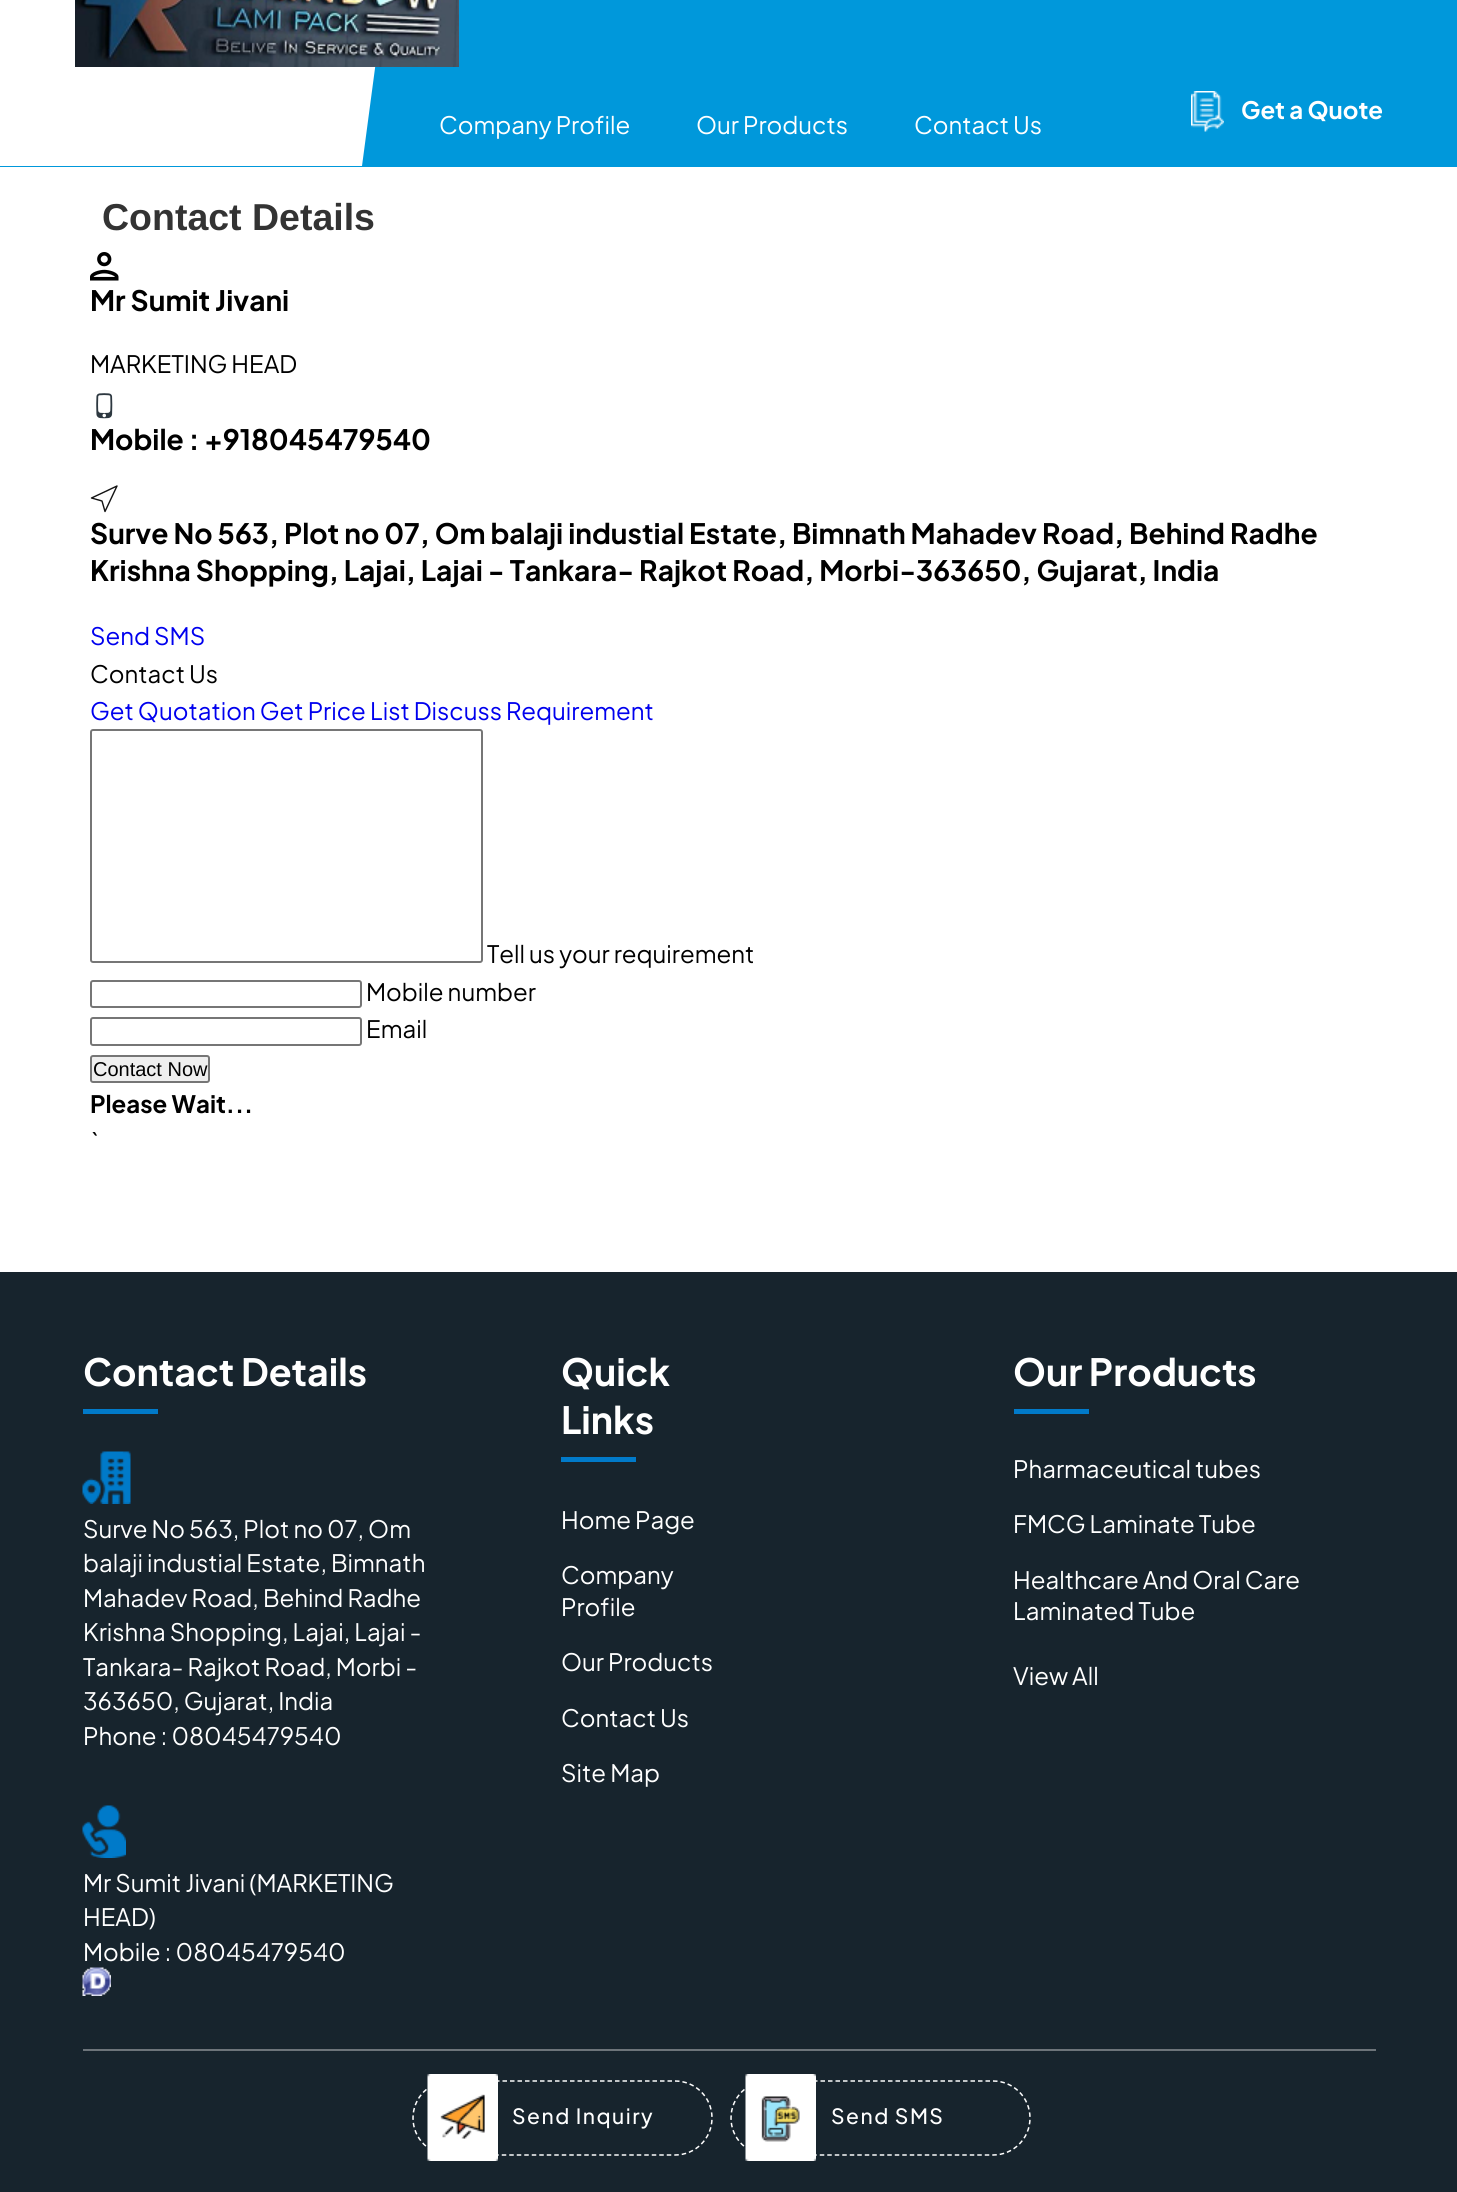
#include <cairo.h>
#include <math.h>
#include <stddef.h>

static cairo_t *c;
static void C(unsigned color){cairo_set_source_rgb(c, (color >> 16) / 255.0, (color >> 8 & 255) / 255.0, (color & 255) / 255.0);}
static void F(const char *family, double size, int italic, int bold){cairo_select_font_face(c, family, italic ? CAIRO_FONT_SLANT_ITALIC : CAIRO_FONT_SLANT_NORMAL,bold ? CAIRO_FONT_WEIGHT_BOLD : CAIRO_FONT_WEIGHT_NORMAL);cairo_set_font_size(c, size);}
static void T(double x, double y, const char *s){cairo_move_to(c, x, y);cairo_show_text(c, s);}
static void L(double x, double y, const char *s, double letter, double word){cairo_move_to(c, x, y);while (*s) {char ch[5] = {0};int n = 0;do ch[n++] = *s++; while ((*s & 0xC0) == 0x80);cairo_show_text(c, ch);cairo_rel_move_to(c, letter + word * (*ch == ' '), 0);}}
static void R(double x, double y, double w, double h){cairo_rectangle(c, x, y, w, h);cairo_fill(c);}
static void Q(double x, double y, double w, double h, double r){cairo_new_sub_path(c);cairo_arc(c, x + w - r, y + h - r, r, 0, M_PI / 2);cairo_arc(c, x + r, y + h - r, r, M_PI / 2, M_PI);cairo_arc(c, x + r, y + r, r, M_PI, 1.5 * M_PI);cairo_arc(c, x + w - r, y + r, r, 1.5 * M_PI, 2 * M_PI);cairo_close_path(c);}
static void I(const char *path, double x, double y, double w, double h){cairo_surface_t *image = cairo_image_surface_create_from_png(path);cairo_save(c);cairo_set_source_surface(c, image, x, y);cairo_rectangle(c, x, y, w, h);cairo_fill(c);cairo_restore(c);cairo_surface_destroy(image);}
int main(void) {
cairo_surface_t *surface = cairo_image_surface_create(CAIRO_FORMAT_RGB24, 1457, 2192);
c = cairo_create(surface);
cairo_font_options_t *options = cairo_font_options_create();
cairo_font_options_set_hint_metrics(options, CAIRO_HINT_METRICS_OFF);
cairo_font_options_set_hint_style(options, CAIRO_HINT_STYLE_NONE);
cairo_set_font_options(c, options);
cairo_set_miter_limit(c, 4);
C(0xffffff);
cairo_paint(c);
C(0x0098db);
R(0,0,1457,167);
C(0xffffff);
cairo_new_path(c);
cairo_move_to(c,0,-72);
cairo_line_to(c,0,166);
cairo_line_to(c,362,166);
cairo_line_to(c,393,-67);
cairo_line_to(c,393,-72);
cairo_close_path(c);
cairo_fill(c);
I("1.png",75,0,384,67);
I("2.png",1191,91,33,41);
F("Plus Jakarta Sans",24,0,1);
T(1241,119,"Get a Quote");
F("Plus Jakarta Sans",24,0,0);
T(439,134,"Company Profile");
T(696,134,"Our Products");
T(914,134,"Contact Us");
F("Liberation Sans",37.5,0,1);
C(0x333333);
T(102,230,"Contact Details");
I("3.png",90,252,29,29);
F("Plus Jakarta Sans",28.1,0,1);
C(0x000000);
T(90,311,"Mr Sumit Jivani");
F("Plus Jakarta Sans",24,0,0);
T(90,373,"MARKETING HEAD");
I("4.png",96,393,17,26);
F("Plus Jakarta Sans",28.1,0,1);
T(90,450,"Mobile : +918045479540");
cairo_new_path(c);
cairo_move_to(c,91.5,498);
cairo_line_to(c,117,486);
cairo_line_to(c,105,511.5);
cairo_line_to(c,102,501);
cairo_close_path(c);
C(0x121212);
cairo_set_line_width(c,1.4);
cairo_set_line_cap(c,CAIRO_LINE_CAP_ROUND);
cairo_set_line_join(c,CAIRO_LINE_JOIN_ROUND);
cairo_stroke(c);
C(0x000000);
T(90,544,"Surve No 563, Plot no 07, Om balaji industial Estate, Bimnath Mahadev Road, Behind Radhe");
T(90,581,"Krishna Shopping, Lajai, Lajai - Tankara- Rajkot Road, Morbi-363650, Gujarat, India");
F("Plus Jakarta Sans",24,0,0);
C(0x0000ee);
T(90,645,"Send SMS");
C(0x000000);
T(90,683,"Contact Us");
C(0x0000ee);
T(90,720,"Get Quotation Get Price List Discuss Requirement");
Q(91,730,391,232,2);
C(0x767676);
cairo_set_line_width(c,2);
cairo_set_line_cap(c,CAIRO_LINE_CAP_BUTT);
cairo_set_line_join(c,CAIRO_LINE_JOIN_MITER);
cairo_stroke(c);
C(0x000000);
T(487,963,"Tell us your requirement");
Q(91,981,270,26,2);
C(0x767676);
cairo_stroke(c);
C(0x000000);
T(366,1001,"Mobile number");
Q(91,1018,270,27,2);
C(0x767676);
cairo_stroke(c);
C(0x000000);
T(366,1038,"Email");
C(0xefefef);
Q(91,1056,118,26,2);
cairo_fill_preserve(c);
C(0x767676);
cairo_stroke(c);
F("Liberation Sans",20,0,0);
C(0x000000);
T(93,1076,"Contact Now");
F("Plus Jakarta Sans",24,0,1);
T(90,1113,"Please Wait...");
F("Plus Jakarta Sans",24,0,0);
T(90,1151,"`");
C(0x17242d);
R(0,1272,1457,920);
F("Plus Jakarta Sans",37.5,0,1);
C(0xffffff);
T(83,1386,"Contact Details");
C(0x017ac9);
R(83,1409,75,5);
I("5.png",82,1451,49,53);
F("Plus Jakarta Sans",24,0,0);
C(0xffffff);
T(83,1538,"Surve No 563, Plot no 07, Om");
T(83,1572,"balaji industial Estate, Bimnath");
T(83,1607,"Mahadev Road, Behind Radhe");
T(83,1641,"Krishna Shopping, Lajai, Lajai -");
T(83,1676,"Tankara- Rajkot Road, Morbi -");
T(83,1710,"363650, Gujarat, India");
T(83,1745,"Phone : 08045479540");
I("6.png",82,1805,44,53);
T(83,1892,"Mr Sumit Jivani (MARKETING");
T(83,1926,"HEAD)");
T(83,1961,"Mobile : 08045479540");
I("7.png",82,1967,29,29);
F("Plus Jakarta Sans",37.5,0,1);
T(561,1386,"Quick");
T(561,1434,"Links");
C(0x017ac9);
R(561,1457,75,5);
F("Plus Jakarta Sans",24,0,0);
C(0xffffff);
T(561,1529,"Home Page");
T(561,1584,"Company");
T(561,1616,"Profile");
T(561,1671,"Our Products");
T(561,1727,"Contact Us");
T(561,1782,"Site Map");
F("Plus Jakarta Sans",37.5,0,1);
T(1013,1386,"Our Products");
C(0x017ac9);
R(1014,1409,75,5);
F("Plus Jakarta Sans",24,0,0);
C(0xffffff);
T(1013,1478,"Pharmaceutical tubes");
T(1013,1533,"FMCG Laminate Tube");
T(1013,1589,"Healthcare And Oral Care");
T(1013,1620,"Laminated Tube");
T(1013,1685,"View All");
C(0x6d747a);
R(83,2049,1293,2);
cairo_new_path(c);
cairo_move_to(c,450,2081);
cairo_line_to(c,675,2081);
cairo_curve_to(c,695.5,2081,712,2097.5,712,2118);
cairo_curve_to(c,712,2138.5,695.5,2155,675,2155);
cairo_line_to(c,450,2155);
cairo_curve_to(c,429.5,2155,413,2138.5,413,2118);
cairo_curve_to(c,413,2097.5,429.5,2081,450,2081);
cairo_close_path(c);
C(0xffffff);
cairo_set_line_width(c,1.5);
cairo_set_dash(c,(double[]){4.5,3},2,0);
cairo_stroke(c);
I("8.png",427,2074,71,87);
F("Plus Jakarta Sans Medium",21,0,0);
L(512,2124,"Send Inquiry",1.5,0);
cairo_new_path(c);
cairo_move_to(c,768,2081);
cairo_line_to(c,993,2081);
cairo_curve_to(c,1013.5,2081,1030,2097.5,1030,2118);
cairo_curve_to(c,1030,2138.5,1013.5,2155,993,2155);
cairo_line_to(c,768,2155);
cairo_curve_to(c,747.5,2155,731,2138.5,731,2118);
cairo_curve_to(c,731,2097.5,747.5,2081,768,2081);
cairo_close_path(c);
cairo_stroke(c);
I("9.png",745,2074,71,87);
L(831,2124,"Send SMS",1.5,0);
cairo_surface_write_to_png(surface, "o.png");
cairo_font_options_destroy(options);
cairo_destroy(c);
cairo_surface_destroy(surface);
return 0;
}
